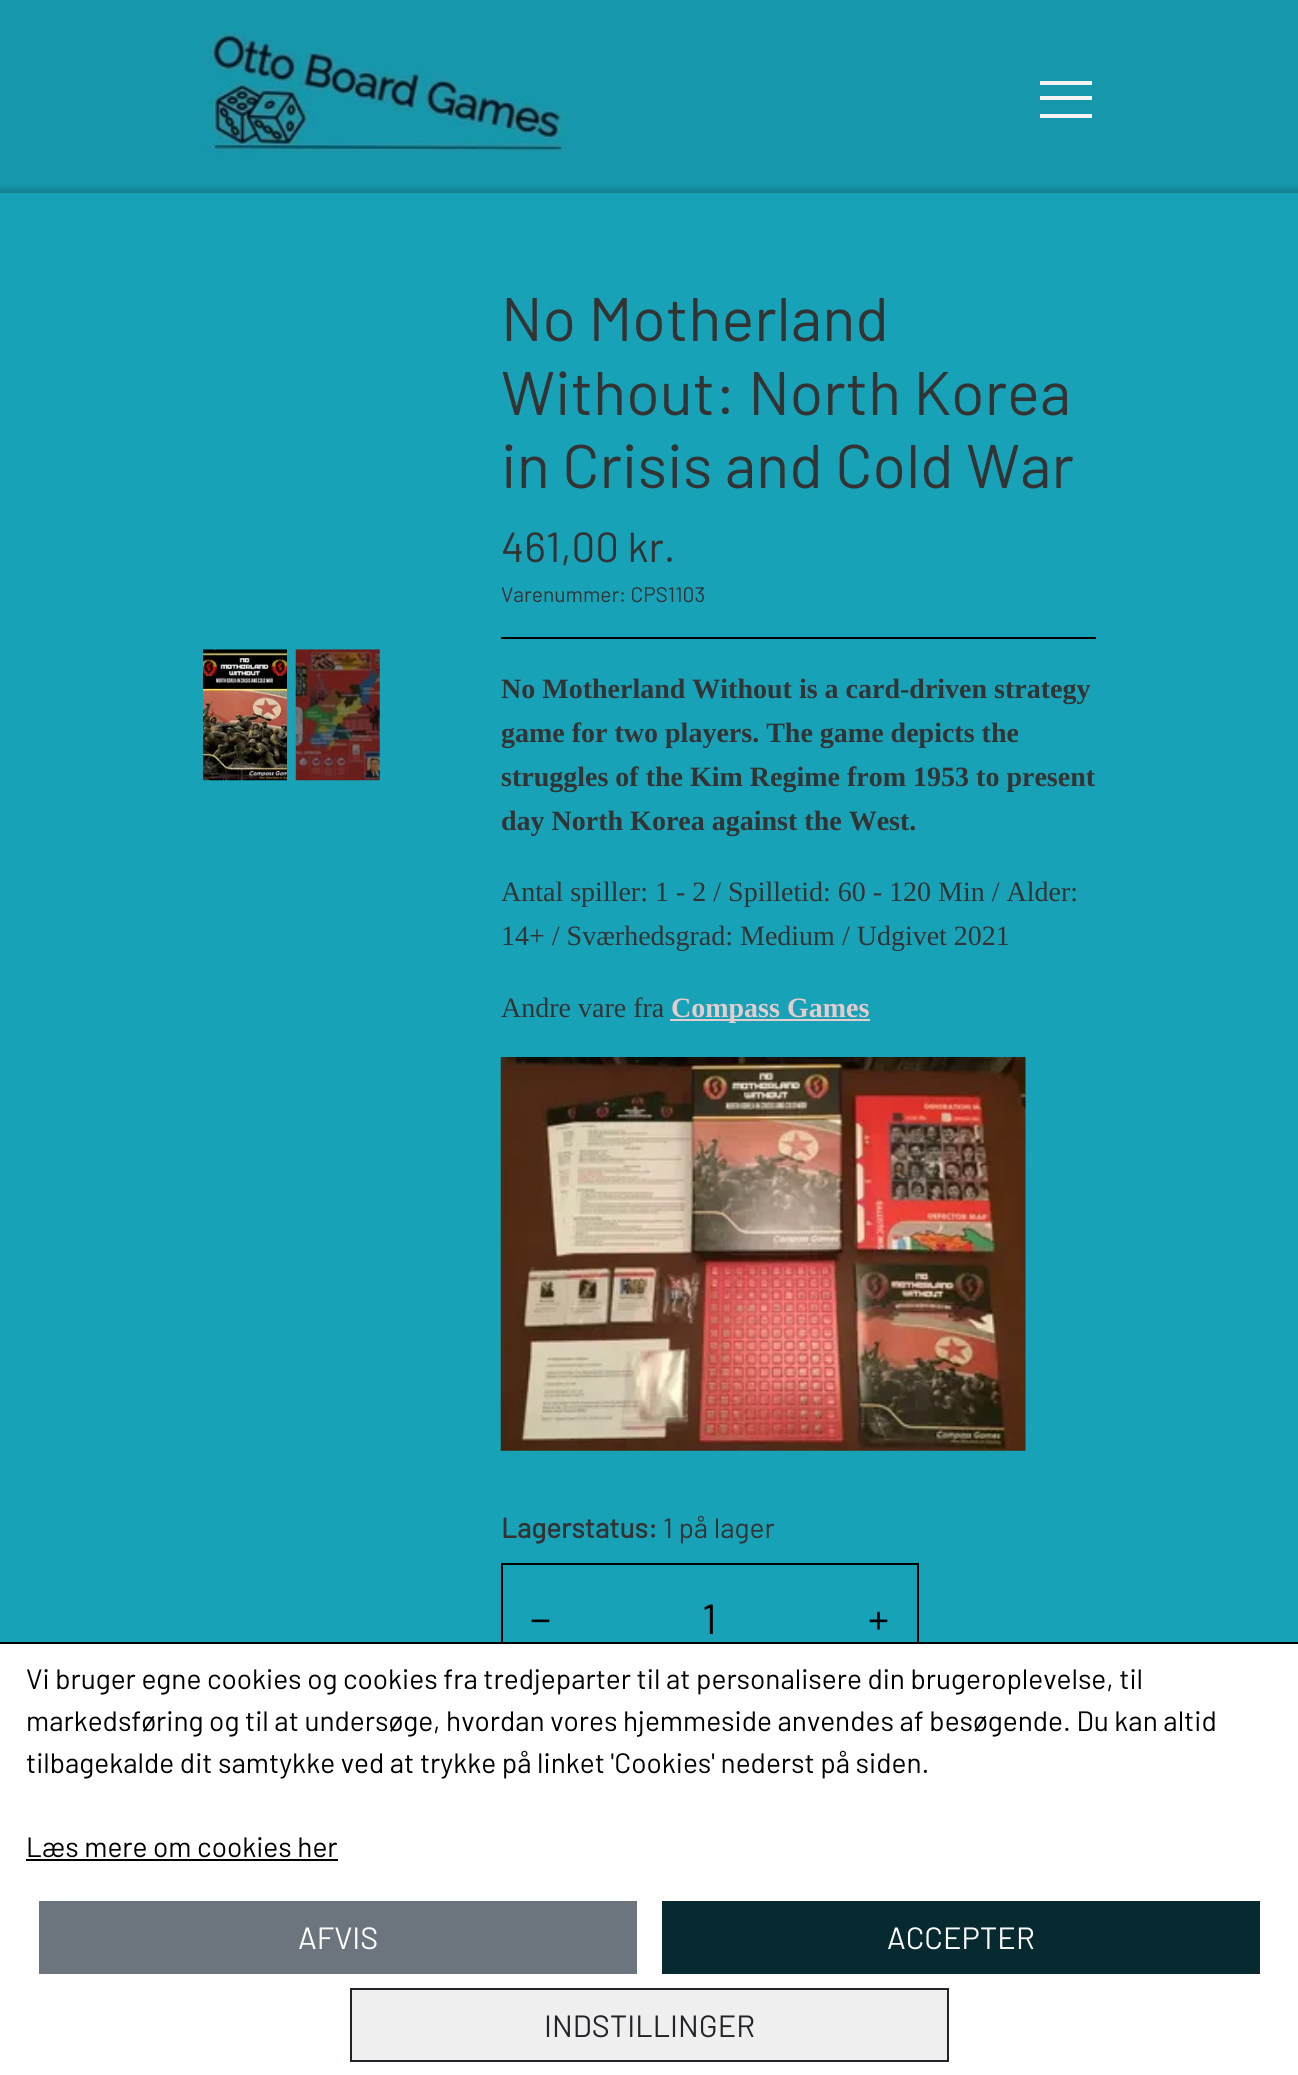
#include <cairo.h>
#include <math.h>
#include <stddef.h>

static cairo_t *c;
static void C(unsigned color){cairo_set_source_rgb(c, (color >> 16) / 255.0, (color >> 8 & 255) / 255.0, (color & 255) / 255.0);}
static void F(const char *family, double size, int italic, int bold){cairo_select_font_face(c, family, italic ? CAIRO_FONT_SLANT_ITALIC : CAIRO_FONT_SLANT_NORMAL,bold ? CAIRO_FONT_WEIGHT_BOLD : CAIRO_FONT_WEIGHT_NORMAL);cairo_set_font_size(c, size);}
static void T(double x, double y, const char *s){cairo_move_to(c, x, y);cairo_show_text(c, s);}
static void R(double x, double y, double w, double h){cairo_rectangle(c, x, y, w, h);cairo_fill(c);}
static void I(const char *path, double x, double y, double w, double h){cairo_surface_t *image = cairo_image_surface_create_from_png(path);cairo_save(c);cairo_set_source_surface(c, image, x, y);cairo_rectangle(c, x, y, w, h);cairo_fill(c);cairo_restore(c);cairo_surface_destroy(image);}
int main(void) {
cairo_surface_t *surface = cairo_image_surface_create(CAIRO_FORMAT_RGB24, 1298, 2075);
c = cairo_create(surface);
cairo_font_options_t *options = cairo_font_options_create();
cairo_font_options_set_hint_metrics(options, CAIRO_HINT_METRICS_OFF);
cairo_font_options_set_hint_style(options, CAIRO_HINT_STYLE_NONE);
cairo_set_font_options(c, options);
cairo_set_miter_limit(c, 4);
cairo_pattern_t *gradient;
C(0x17a2b8);
cairo_paint(c);
C(0x1697ac);
R(0,0,1298,184);
I("1.png",203,26,364,127);
C(0xf4f4f4);
R(1040,81,52,4);
R(1040,96,52,4);
R(1040,114,52,4);
gradient = cairo_pattern_create_linear(649,193,649,184);
cairo_pattern_add_color_stop_rgba(gradient,0,0.075,0.502,0.573,1);
cairo_pattern_add_color_stop_rgba(gradient,1,0.086,0.592,0.675,1);
cairo_set_source(c,gradient);
cairo_pattern_destroy(gradient);
R(0,184,1298,9);
I("2.png",203,649,84,132);
I("3.png",295,649,85,132);
F("Barlow",61.5,0,0);
C(0x333333);
T(501,341,"No Motherland");
T(501,415,"Without: North Korea");
T(501,488,"in Crisis and Cold War");
F("Barlow",42,0,0);
T(501,562,"461,00 kr.");
F("Barlow",21,0,0);
T(501,602,"Varenummer: CPS1103");
C(0x000000);
R(501,637,595,2);
F("Liberation Serif",28,0,1);
C(0x333333);
T(501,698,"No Motherland Without is a card-driven strategy");
T(501,742,"game for two players. The game depicts the");
T(501,786,"struggles of the Kim Regime from 1953 to present");
T(501,830,"day North Korea against the West.");
F("Liberation Serif",28,0,0);
T(501,901,"Antal spiller: 1 - 2 / Spilletid: 60 - 120 Min / Alder:");
T(501,945,"14+ / Sværhedsgrad: Medium / Udgivet 2021");
T(501,1017,"Andre vare fra");
C(0xe5cdcd);
R(670,1019,200,2);
F("Liberation Serif",28,0,1);
T(671,1017,"Compass Games");
I("4.png",500,1057,526,394);
F("Barlow",28,0,1);
C(0x333333);
T(501,1538,"Lagerstatus:");
F("Barlow",28,0,0);
T(663,1538,"1 på lager");
cairo_rectangle(c,502,1564,416,110);
C(0x000000);
cairo_stroke(c);
F("Barlow",42,0,0);
T(530,1634,"−");
T(702,1634,"1");
T(868,1634,"+");
C(0xffffff);
R(0,1644,1298,431);
C(0x000000);
R(0,1642,1298,2);
F("Barlow",28,0,0);
T(26,1689,"Vi bruger egne cookies og cookies fra tredjeparter til at personalisere din brugeroplevelse, til");
T(26,1731,"markedsføring og til at undersøge, hvordan vores hjemmeside anvendes af besøgende. Du kan altid");
T(26,1773,"tilbagekalde dit samtykke ved at trykke på linket 'Cookies' nederst på siden.");
T(26,1857,"Læs mere om cookies her");
R(26,1859,312,2);
C(0x6c757d);
R(39,1901,598,73);
F("Barlow",30.75,0,0);
C(0xffffff);
T(298,1949,"AFVIS");
C(0x062a30);
R(662,1901,598,73);
C(0xffffff);
T(887,1949,"ACCEPTER");
C(0xefefef);
cairo_rectangle(c,351,1989,597,72);
cairo_fill_preserve(c);
C(0x212529);
cairo_stroke(c);
T(544,2037,"INDSTILLINGER");
cairo_surface_write_to_png(surface, "o.png");
cairo_font_options_destroy(options);
cairo_destroy(c);
cairo_surface_destroy(surface);
return 0;
}
